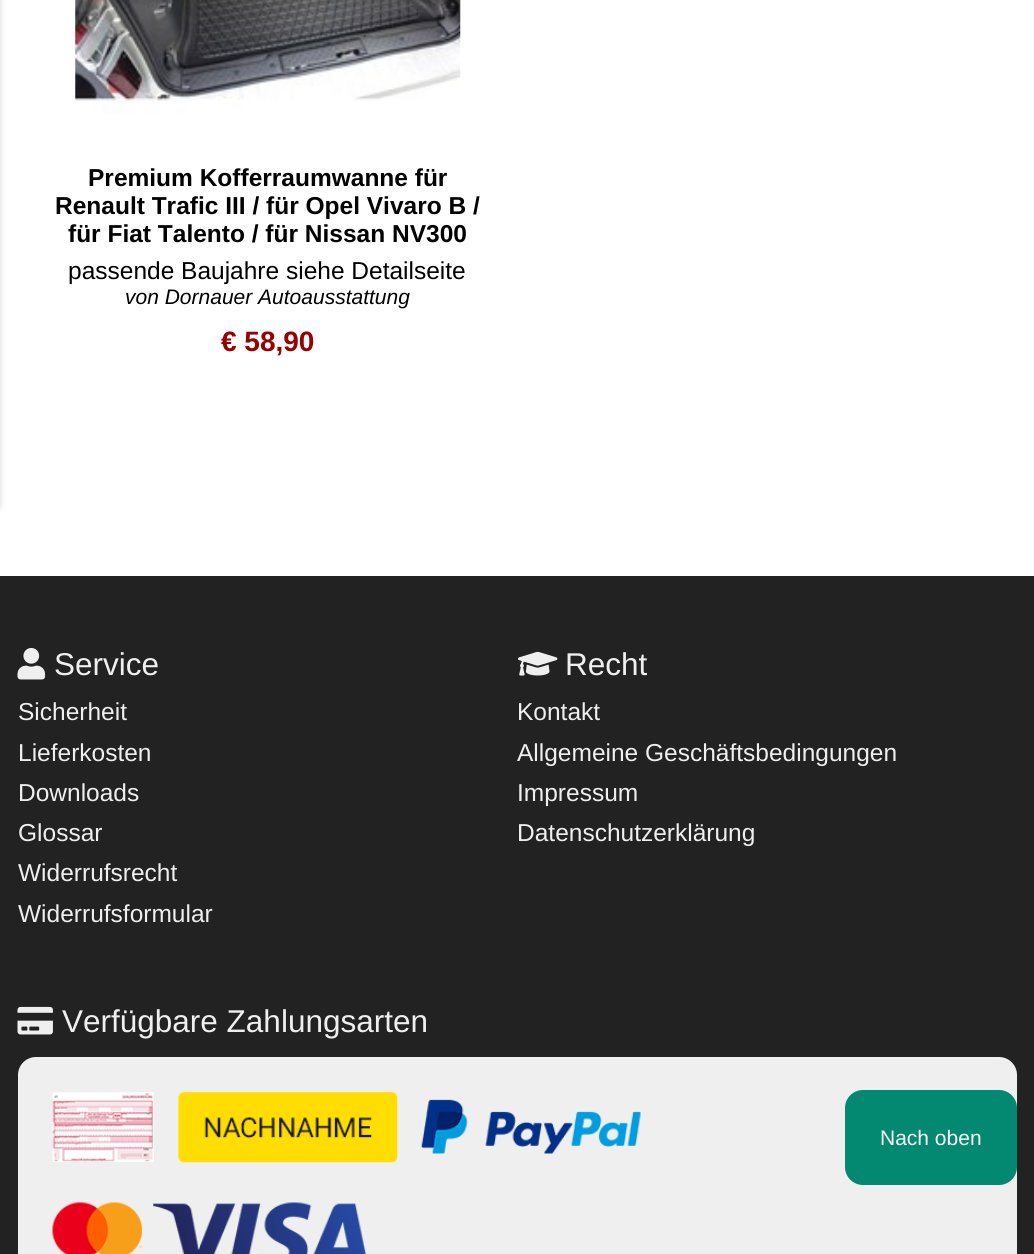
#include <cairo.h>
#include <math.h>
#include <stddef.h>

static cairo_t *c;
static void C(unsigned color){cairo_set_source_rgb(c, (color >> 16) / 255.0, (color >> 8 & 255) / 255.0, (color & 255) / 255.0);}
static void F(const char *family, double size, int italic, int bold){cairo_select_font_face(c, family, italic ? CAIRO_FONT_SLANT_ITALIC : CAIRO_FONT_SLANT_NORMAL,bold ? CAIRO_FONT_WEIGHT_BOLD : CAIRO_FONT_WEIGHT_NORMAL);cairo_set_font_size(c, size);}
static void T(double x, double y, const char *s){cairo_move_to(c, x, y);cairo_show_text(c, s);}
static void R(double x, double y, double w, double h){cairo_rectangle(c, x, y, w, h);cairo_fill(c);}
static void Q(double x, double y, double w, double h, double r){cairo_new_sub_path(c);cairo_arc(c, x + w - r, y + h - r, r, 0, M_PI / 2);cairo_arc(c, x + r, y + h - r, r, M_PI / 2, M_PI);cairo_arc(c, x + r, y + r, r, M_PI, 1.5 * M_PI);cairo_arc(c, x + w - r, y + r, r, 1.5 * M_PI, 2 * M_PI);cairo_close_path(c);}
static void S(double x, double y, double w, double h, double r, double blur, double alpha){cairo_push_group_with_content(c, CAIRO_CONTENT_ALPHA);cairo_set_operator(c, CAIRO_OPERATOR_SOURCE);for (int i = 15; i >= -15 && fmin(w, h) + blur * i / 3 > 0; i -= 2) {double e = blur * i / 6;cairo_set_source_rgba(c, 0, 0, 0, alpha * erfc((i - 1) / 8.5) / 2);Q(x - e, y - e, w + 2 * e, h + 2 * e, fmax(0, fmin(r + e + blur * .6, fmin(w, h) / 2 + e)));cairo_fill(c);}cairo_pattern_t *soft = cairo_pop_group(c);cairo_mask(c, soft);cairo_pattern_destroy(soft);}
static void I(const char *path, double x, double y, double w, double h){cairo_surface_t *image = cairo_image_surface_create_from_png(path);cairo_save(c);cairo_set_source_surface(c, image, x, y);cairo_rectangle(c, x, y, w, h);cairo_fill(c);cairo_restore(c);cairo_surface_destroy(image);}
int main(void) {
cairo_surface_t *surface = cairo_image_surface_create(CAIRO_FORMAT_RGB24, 1034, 1254);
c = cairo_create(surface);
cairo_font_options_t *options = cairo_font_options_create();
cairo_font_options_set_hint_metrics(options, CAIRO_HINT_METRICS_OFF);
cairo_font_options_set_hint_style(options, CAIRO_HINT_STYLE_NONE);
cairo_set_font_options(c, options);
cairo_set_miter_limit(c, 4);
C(0xffffff);
cairo_paint(c);
C(0x000000);
S(-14,-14,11,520,0,4.5,.3);
I("1.png",75,0,386,115);
F("Liberation Sans",24.5,0,1);
C(0x000000);
T(88,186,"Premium Kofferraumwanne für");
T(55,214,"Renault Trafic III / für Opel Vivaro B /");
T(68,242,"für Fiat Talento / für Nissan NV300");
F("Liberation Sans",24.5,0,0);
T(68,279,"passende Baujahre siehe Detailseite");
F("Liberation Sans",21,1,0);
T(125,304,"von Dornauer Autoausstattung");
F("Liberation Sans",28,0,1);
C(0x990000);
T(221,351,"€ 58,90");
C(0x222222);
R(0,576,1034,678);
I("2.png",17,647,29,33);
F("Liberation Sans",31.5,0,0);
C(0xefefef);
T(54,675,"Service");
F("Liberation Sans",24.5,0,0);
T(18,720,"Sicherheit");
T(18,761,"Lieferkosten");
T(18,801,"Downloads");
T(18,841,"Glossar");
T(18,881,"Widerrufsrecht");
T(18,922,"Widerrufsformular");
I("3.png",518,651,40,25);
F("Liberation Sans",31.5,0,0);
T(565,675,"Recht");
F("Liberation Sans",24.5,0,0);
T(517,720,"Kontakt");
T(517,761,"Allgemeine Geschäftsbedingungen");
T(517,801,"Impressum");
T(517,841,"Datenschutzerklärung");
I("4.png",17,1006,36,29);
F("Liberation Sans",31.5,0,0);
T(62,1032,"Verfügbare Zahlungsarten");
Q(18,1057,999,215,18);
cairo_fill(c);
I("5.png",52,1092,102,70);
I("6.png",178,1092,220,71);
I("7.png",421,1099,220,55);
I("8.png",52,1202,315,52);
C(0x038971);
Q(845,1090,172,95,18);
cairo_fill(c);
F("Liberation Sans",21,0,0);
C(0xffffff);
T(880,1145,"Nach oben");
cairo_surface_write_to_png(surface, "o.png");
cairo_font_options_destroy(options);
cairo_destroy(c);
cairo_surface_destroy(surface);
return 0;
}
